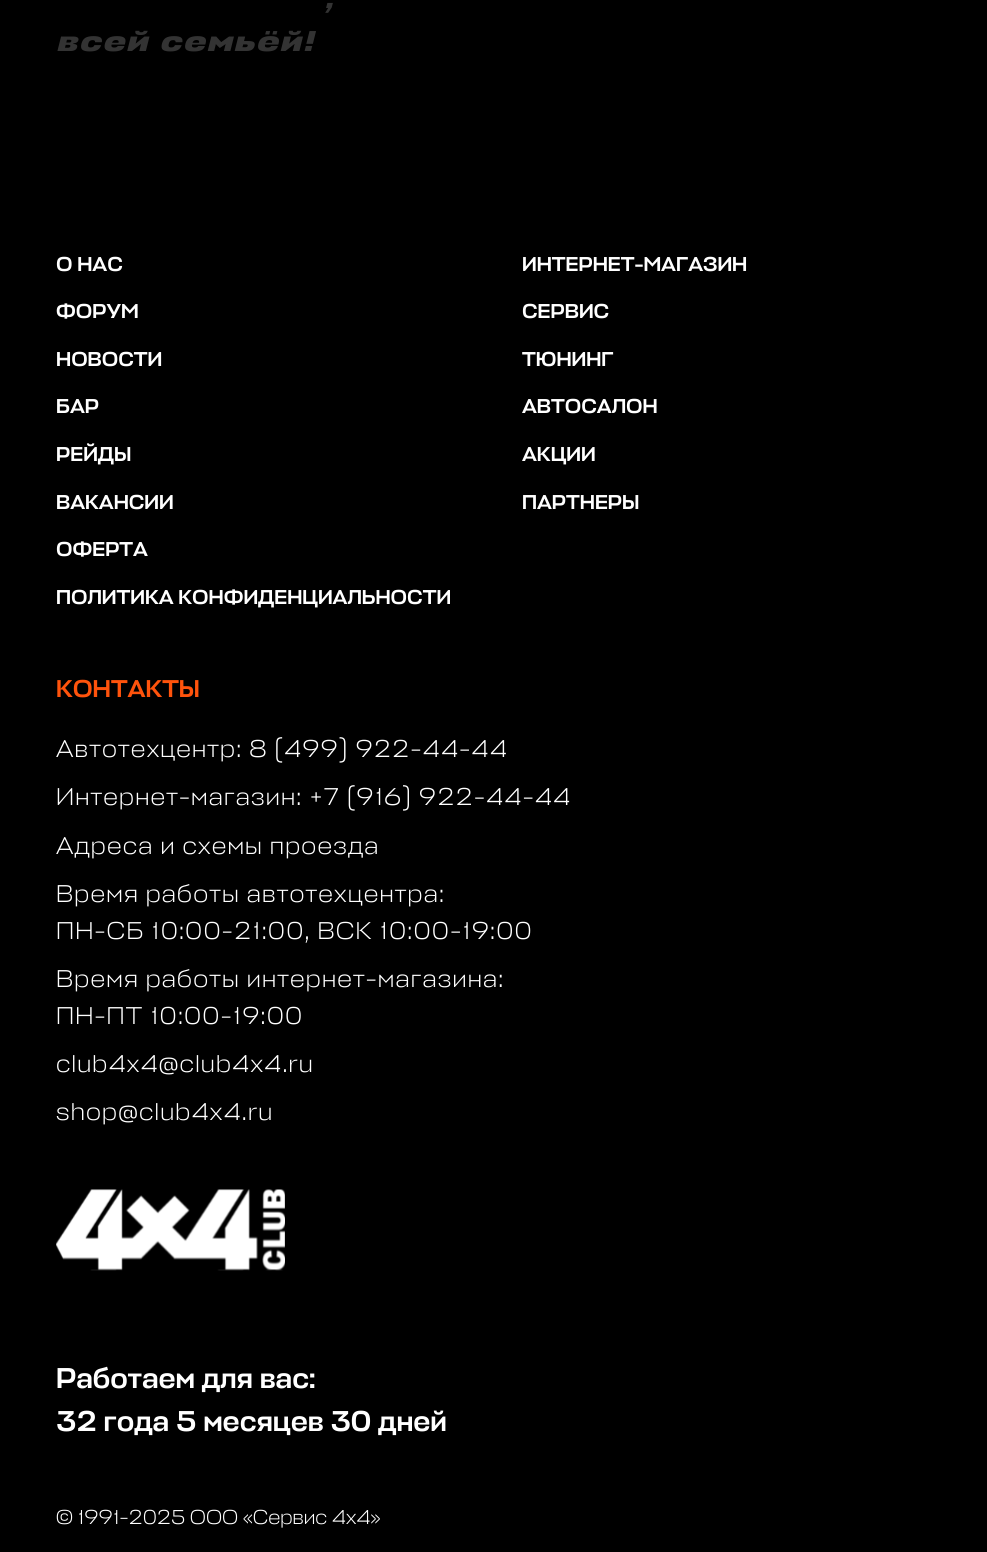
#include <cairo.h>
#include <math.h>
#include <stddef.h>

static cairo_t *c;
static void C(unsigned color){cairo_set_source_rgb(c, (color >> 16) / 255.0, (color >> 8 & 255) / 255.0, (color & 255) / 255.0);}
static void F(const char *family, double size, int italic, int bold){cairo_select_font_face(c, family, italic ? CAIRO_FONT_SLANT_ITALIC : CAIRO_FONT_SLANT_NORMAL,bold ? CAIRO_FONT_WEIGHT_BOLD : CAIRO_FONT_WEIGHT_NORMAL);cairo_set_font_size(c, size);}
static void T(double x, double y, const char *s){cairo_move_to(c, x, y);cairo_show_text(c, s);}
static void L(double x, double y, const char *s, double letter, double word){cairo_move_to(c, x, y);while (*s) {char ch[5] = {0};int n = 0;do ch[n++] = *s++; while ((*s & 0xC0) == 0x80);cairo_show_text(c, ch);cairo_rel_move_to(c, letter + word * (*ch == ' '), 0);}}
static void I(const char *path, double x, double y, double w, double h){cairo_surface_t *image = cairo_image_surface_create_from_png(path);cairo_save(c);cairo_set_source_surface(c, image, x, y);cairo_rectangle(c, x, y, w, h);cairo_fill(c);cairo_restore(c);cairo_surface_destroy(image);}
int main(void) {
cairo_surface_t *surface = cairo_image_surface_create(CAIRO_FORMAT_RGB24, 987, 1552);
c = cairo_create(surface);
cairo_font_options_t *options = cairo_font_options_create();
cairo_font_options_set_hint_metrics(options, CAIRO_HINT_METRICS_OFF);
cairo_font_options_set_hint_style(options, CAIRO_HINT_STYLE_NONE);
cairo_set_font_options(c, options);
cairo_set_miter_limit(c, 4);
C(0x000000);
cairo_paint(c);
F("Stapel",28.9,1,1);
C(0x333333);
L(325,8,",",1.5,0);
L(56,51,"всей семьёй!",1.5,0);
F("Stapel Medium",20.25,0,0);
C(0xffffff);
T(56,271,"О НАС");
T(56,318,"ФОРУМ");
T(56,366,"НОВОСТИ");
T(56,413,"БАР");
T(56,461,"РЕЙДЫ");
T(56,509,"ВАКАНСИИ");
T(56,556,"ОФЕРТА");
T(56,604,"ПОЛИТИКА КОНФИДЕНЦИАЛЬНОСТИ");
T(522,271,"ИНТЕРНЕТ-МАГАЗИН");
T(522,318,"СЕРВИС");
T(522,366,"ТЮНИНГ");
T(522,413,"АВТОСАЛОН");
T(522,461,"АКЦИИ");
T(522,509,"ПАРТНЕРЫ");
F("Stapel Medium",24.5,0,0);
C(0xff530c);
T(56,697,"КОНТАКТЫ");
F("Stapel Light",24.5,0,0);
C(0xffffff);
L(56,757,"Автотехцентр: 8 (499) 922-44-44",1.2,0);
L(56,805,"Интернет-магазин: +7 (916) 922-44-44",1.2,0);
L(56,854,"Адреса и схемы проезда",1.2,0);
L(56,902,"Время работы автотехцентра:",1.2,0);
L(56,939,"ПН-СБ 10:00-21:00, ВСК 10:00-19:00",1.2,0);
L(56,987,"Время работы интернет-магазина:",1.2,0);
L(56,1024,"ПН-ПТ 10:00-19:00",1.2,0);
L(56,1072,"club4x4@club4x4.ru",1.2,0);
L(56,1120,"shop@club4x4.ru",1.2,0);
I("1.png",56,1189,229,82);
F("Stapel Medium",28.9,0,0);
T(56,1388,"Работаем для вас:");
T(56,1431,"32 года 5 месяцев 30 дней");
F("Stapel Light",20.25,0,0);
T(56,1524,"© 1991-2025 ООО «Сервис 4х4»");
cairo_surface_write_to_png(surface, "o.png");
cairo_font_options_destroy(options);
cairo_destroy(c);
cairo_surface_destroy(surface);
return 0;
}
